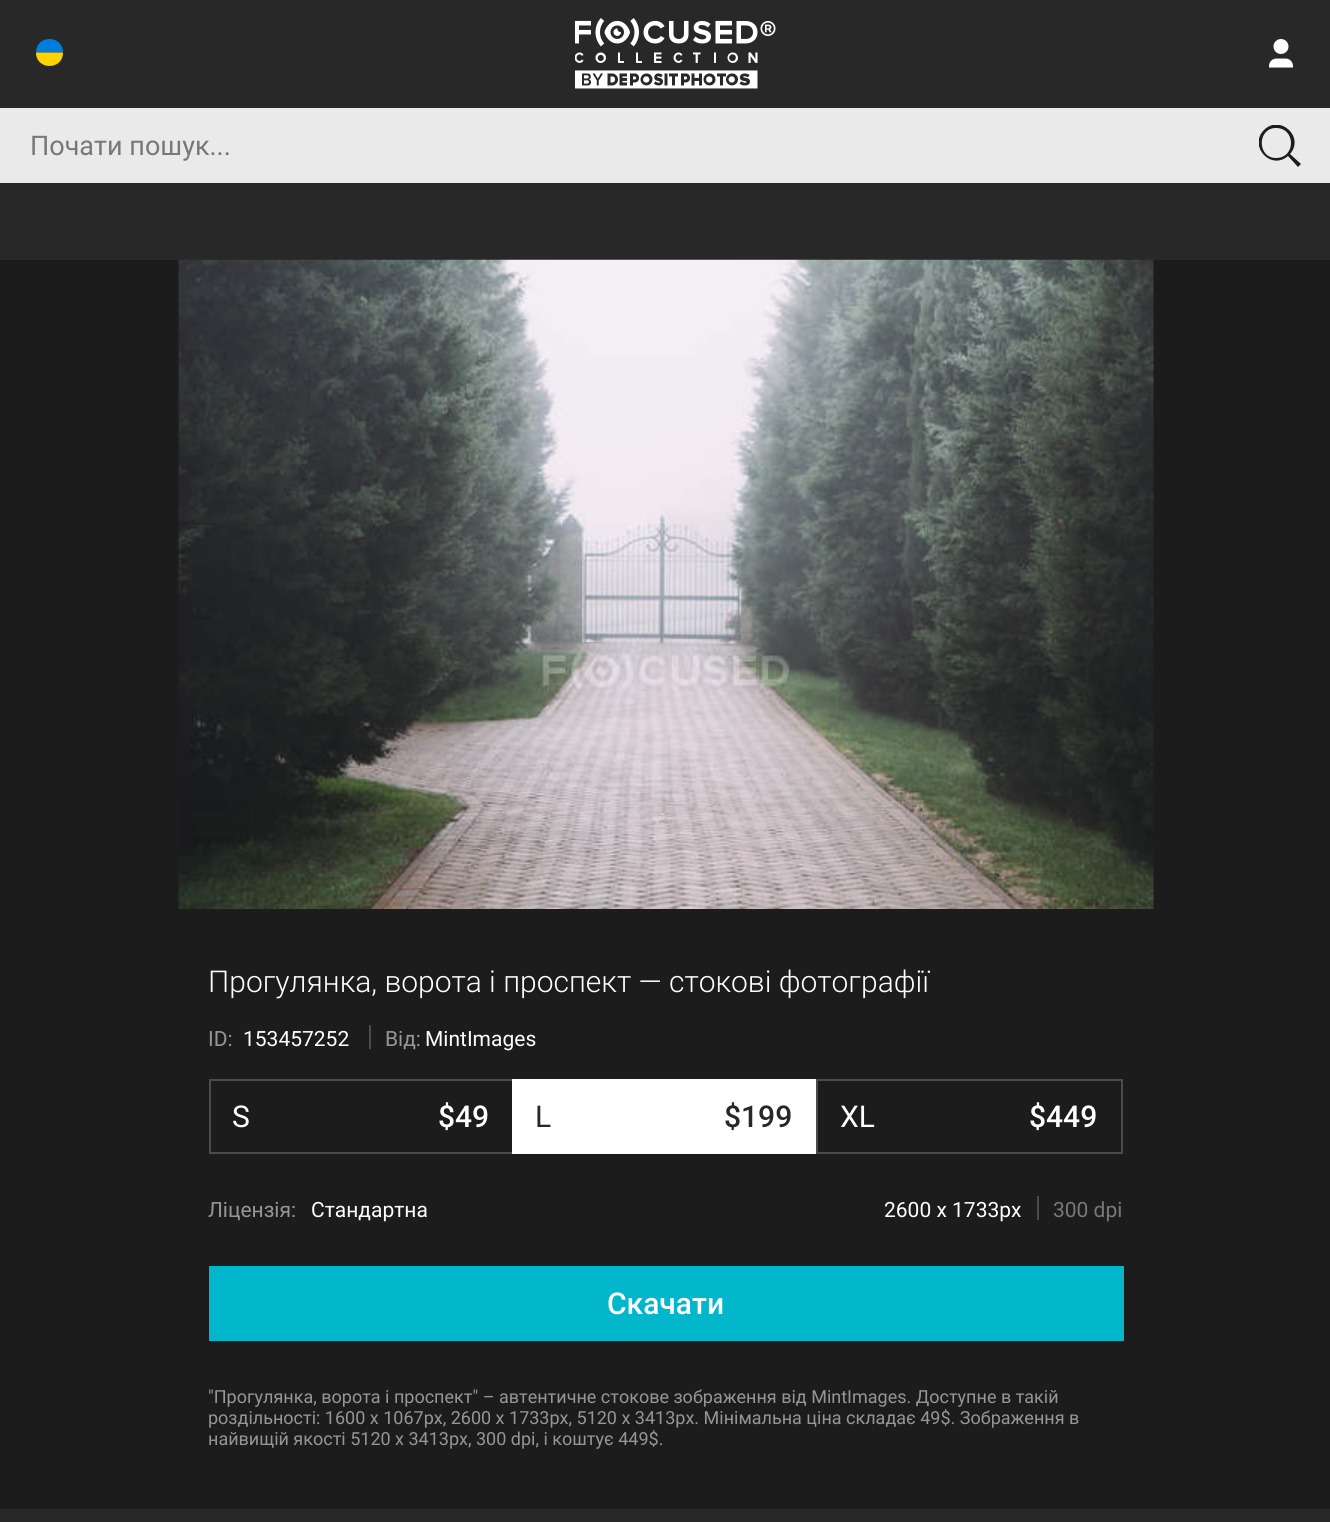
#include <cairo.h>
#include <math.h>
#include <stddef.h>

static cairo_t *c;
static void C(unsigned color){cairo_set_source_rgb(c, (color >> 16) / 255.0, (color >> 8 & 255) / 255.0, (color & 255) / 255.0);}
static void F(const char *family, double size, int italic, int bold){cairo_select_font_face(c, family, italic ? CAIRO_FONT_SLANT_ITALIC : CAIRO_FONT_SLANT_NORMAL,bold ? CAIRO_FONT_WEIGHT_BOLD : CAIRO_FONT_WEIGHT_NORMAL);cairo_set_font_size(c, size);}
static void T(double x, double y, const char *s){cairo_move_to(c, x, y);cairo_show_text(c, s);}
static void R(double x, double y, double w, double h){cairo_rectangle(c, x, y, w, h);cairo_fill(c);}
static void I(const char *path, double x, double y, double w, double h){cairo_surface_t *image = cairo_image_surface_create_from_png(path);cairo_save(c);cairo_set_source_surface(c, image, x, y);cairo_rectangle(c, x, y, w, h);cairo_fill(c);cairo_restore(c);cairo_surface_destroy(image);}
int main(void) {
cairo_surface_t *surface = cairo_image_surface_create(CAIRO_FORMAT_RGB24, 1330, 1522);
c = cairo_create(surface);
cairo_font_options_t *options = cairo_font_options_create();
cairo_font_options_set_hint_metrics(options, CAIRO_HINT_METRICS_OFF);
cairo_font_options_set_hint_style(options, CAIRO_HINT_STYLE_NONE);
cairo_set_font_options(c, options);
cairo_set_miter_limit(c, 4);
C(0x282828);
cairo_paint(c);
C(0x007edf);
cairo_set_fill_rule(c,CAIRO_FILL_RULE_EVEN_ODD);
cairo_new_path(c);
cairo_move_to(c,36,52.5);
cairo_curve_to(c,36,34.5,63,34.5,63,52.5);
cairo_close_path(c);
cairo_fill(c);
C(0xffd201);
cairo_new_path(c);
cairo_move_to(c,36,52.5);
cairo_line_to(c,63,52.5);
cairo_curve_to(c,63,70.5,36,70.5,36,52.5);
cairo_close_path(c);
cairo_fill(c);
I("1.png",575,18,201,71);
I("2.png",1269,39,24,29);
C(0xeaeaea);
R(0,108,1330,75);
F("Roboto",27,0,0);
C(0x787878);
T(30,155,"Почати пошук...");
cairo_save(c);
cairo_set_fill_rule(c,CAIRO_FILL_RULE_WINDING);
cairo_rectangle(c,1259,125,42,42);
cairo_clip(c);
C(0x1c1c1c);
cairo_set_fill_rule(c,CAIRO_FILL_RULE_EVEN_ODD);
cairo_new_path(c);
cairo_move_to(c,1301,164);
cairo_line_to(c,1298,167);
cairo_line_to(c,1288,156);
cairo_curve_to(c,1271,171,1248,146,1264,130);
cairo_curve_to(c,1280,114,1305,137,1290,154);
cairo_close_path(c);
cairo_move_to(c,1276,128);
cairo_curve_to(c,1257,128,1257,158,1276,158);
cairo_curve_to(c,1296,158,1296,128,1276,128);
cairo_close_path(c);
cairo_fill(c);
cairo_restore(c);
C(0x1c1c1c);
R(0,260,1330,1249);
I("3.png",178,259,976,650);
F("Roboto Light",30,0,0);
C(0xffffff);
T(208,992,"Прогулянка, ворота і проспект — стокові фотографії");
F("Roboto",21,0,0);
C(0x969696);
T(208,1046,"ID:");
C(0xffffff);
T(243,1046,"153457252");
C(0x4b4b4b);
R(369,1025,2,24);
C(0x969696);
T(385,1046,"Від:");
C(0xffffff);
T(425,1046,"MintImages");
C(0x4b4b4b);
R(209,1079,304,2);
R(209,1152,304,2);
C(0xffffff);
R(512,1079,304,75);
F("Roboto",30,0,0);
C(0x282828);
T(535,1127,"L");
F("Roboto Medium",30,0,0);
T(724,1127,"$199");
F("Roboto",21,0,0);
C(0x969696);
T(208,1217,"Ліцензія:");
C(0xffffff);
T(311,1217,"Стандартна");
T(884,1217,"2600 x 1733px");
C(0x4b4b4b);
R(1037,1196,2,24);
C(0x787878);
T(1053,1217,"300 dpi");
C(0x4b4b4b);
R(209,1079,2,75);
F("Roboto",30,0,0);
C(0xffffff);
T(232,1127,"S");
F("Roboto Medium",30,0,0);
T(438,1127,"$49");
C(0x4b4b4b);
R(816,1079,306,2);
R(1121,1079,2,75);
R(816,1152,306,2);
R(816,1079,2,75);
F("Roboto",30,0,0);
C(0xffffff);
T(840,1127,"XL");
F("Roboto Medium",30,0,0);
T(1029,1127,"$449");
C(0x02b6cb);
R(209,1266,915,75);
C(0xffffff);
T(607,1314,"Скачати");
F("Roboto",18,0,0);
C(0x969696);
T(208,1403,"\"Прогулянка, ворота і проспект\" – автентичне стокове зображення від MintImages. Доступне в такій");
T(208,1424,"роздільності: 1600 x 1067px, 2600 x 1733px, 5120 x 3413px. Мінімальна ціна складає 49$. Зображення в");
T(208,1445,"найвищій якості 5120 x 3413px, 300 dpi, і коштує 449$.");
cairo_surface_write_to_png(surface, "o.png");
cairo_font_options_destroy(options);
cairo_destroy(c);
cairo_surface_destroy(surface);
return 0;
}
